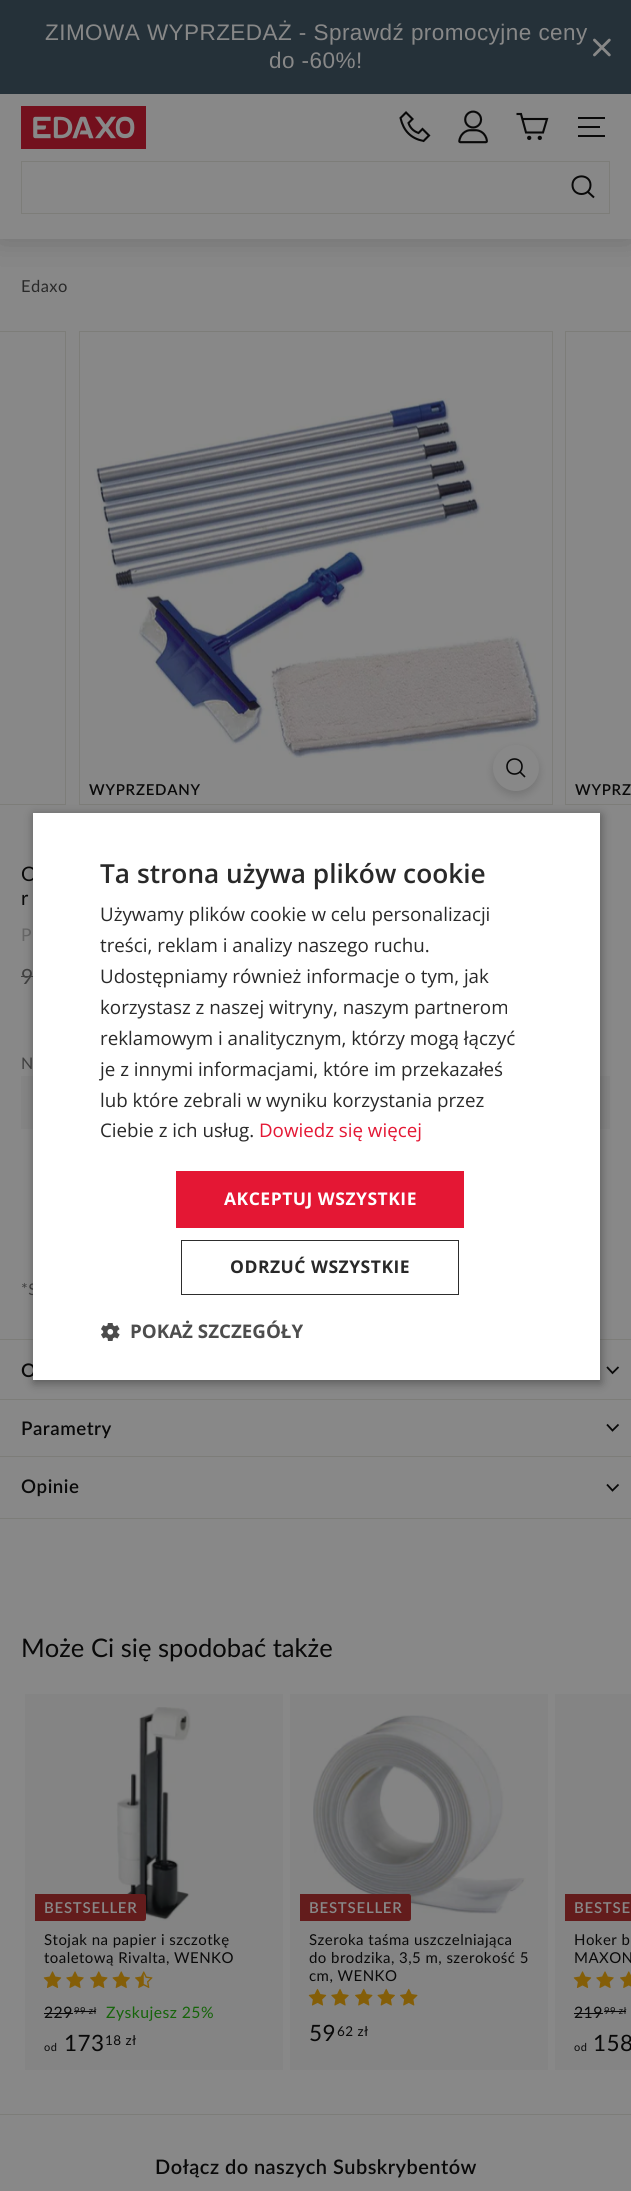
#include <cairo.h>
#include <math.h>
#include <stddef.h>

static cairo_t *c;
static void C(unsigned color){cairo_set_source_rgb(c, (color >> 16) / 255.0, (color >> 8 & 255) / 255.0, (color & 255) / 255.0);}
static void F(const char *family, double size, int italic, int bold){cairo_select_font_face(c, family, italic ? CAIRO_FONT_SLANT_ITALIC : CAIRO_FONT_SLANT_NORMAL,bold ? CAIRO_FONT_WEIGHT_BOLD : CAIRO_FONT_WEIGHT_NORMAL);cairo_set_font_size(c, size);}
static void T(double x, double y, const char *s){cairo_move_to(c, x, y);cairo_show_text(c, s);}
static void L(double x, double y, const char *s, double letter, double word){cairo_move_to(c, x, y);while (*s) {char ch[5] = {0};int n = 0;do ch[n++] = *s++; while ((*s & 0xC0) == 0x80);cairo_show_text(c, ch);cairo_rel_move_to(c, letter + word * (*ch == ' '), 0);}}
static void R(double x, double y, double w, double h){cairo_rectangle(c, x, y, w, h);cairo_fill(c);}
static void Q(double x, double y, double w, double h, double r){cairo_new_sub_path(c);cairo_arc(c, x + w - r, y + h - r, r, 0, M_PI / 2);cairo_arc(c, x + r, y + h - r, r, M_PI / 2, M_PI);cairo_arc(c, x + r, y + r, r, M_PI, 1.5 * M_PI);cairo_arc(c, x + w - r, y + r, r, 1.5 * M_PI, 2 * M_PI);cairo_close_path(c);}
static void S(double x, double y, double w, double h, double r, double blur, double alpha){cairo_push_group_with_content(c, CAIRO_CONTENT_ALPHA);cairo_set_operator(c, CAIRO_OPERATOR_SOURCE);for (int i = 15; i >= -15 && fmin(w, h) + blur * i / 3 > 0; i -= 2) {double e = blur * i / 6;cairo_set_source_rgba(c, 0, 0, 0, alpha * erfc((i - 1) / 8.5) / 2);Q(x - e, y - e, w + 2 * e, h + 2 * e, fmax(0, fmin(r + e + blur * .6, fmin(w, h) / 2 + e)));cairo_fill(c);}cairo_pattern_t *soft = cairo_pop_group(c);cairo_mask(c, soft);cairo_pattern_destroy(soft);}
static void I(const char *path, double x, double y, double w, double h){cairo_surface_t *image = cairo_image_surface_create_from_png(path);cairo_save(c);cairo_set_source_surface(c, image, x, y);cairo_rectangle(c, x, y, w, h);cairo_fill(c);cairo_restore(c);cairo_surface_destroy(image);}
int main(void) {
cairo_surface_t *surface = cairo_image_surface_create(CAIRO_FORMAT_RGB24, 631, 2191);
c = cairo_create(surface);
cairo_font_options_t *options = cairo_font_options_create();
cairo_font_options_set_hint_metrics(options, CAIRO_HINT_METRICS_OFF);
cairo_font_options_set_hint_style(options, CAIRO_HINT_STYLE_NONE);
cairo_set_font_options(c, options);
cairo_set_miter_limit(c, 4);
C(0x888888);
cairo_paint(c);
C(0x848484);
R(555,1694,76,376);
R(290,1694,258,376);
R(25,1694,258,376);
C(0x090909);
S(0,94,631,145,0,15.5,.1);
C(0x253139);
R(0,0,631,94);
F("Liberation Sans",22.5,0,0);
C(0x888888);
L(45,40,"ZIMOWA WYPRZEDAŻ - Sprawdź promocyjne ceny",.45,0);
L(269,68,"do -60%!",.45,0);
I("1.png",593,38,18,19);
C(0x090909);
S(0,161,631,78,0,15.5,.1);
C(0x888888);
R(0,94,631,145);
cairo_rectangle(c,21.5,161.5,588,52);
C(0x7d7d79);
cairo_set_line_width(c,1);
cairo_stroke(c);
cairo_new_path(c);
cairo_move_to(c,590.5,185);
cairo_curve_to(c,590.5,197,572.5,197,572.5,185);
cairo_curve_to(c,572.5,173.5,590.5,173.5,590.5,185);
cairo_close_path(c);
cairo_move_to(c,594,197.5);
cairo_line_to(c,588,192);
C(0x090909);
cairo_set_line_width(c,2);
cairo_stroke(c);
I("2.png",21,106,125,43);
cairo_new_path(c);
cairo_move_to(c,406,112.5);
cairo_line_to(c,412.5,119);
cairo_line_to(c,408.5,123);
cairo_curve_to(c,410,127.5,413,131,418.5,133);
cairo_line_to(c,422.5,129);
cairo_line_to(c,429,135.5);
cairo_line_to(c,423.5,141);
cairo_curve_to(c,411,138.5,403.5,131,400.5,118);
cairo_close_path(c);
cairo_set_line_width(c,2.1);
cairo_stroke(c);
I("3.png",458,110,30,34);
cairo_new_path(c);
cairo_move_to(c,522.5,119);
cairo_line_to(c,547,119);
cairo_line_to(c,543,132.5);
cairo_line_to(c,526,132.5);
cairo_line_to(c,521,114);
cairo_line_to(c,516.5,114);
cairo_stroke(c);
cairo_arc(c,529.2,137.9,1.1,0,2 * M_PI);
cairo_stroke(c);
cairo_arc(c,539.8,137.9,1.1,0,2 * M_PI);
cairo_stroke(c);
R(578,117,27,2);
R(578,126,22,2);
R(578,135,27,2);
F("Lato",16.5,0,0);
C(0x292929);
L(21,292,"Edaxo",.45,0);
cairo_rectangle(c,-.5,331.5,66,473);
C(0x7d7d79);
cairo_set_line_width(c,1);
cairo_stroke(c);
cairo_rectangle(c,79.5,331.5,473,473);
cairo_stroke(c);
I("4.png",94,398,447,360);
F("Lato SemiBold",15,0,0);
C(0x090909);
L(89,795,"WYPRZEDANY",.75,0);
C(0x090909);
S(493,749,46,46,23,4,.15);
C(0x888888);
cairo_arc(c,516,768,23,0,2 * M_PI);
cairo_fill(c);
cairo_new_path(c);
cairo_move_to(c,522,766.5);
cairo_curve_to(c,522,776.5,507,776.5,507,766.5);
cairo_curve_to(c,507,756.5,522,756.5,522,766.5);
cairo_close_path(c);
cairo_move_to(c,525,777);
cairo_line_to(c,520,772);
C(0x090909);
cairo_set_line_width(c,1.6);
cairo_stroke(c);
cairo_rectangle(c,565.5,331.5,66,473);
C(0x7d7d79);
cairo_set_line_width(c,1);
cairo_stroke(c);
C(0x090909);
L(575,795,"WYPRZ",.75,0);
F("Lato",20,0,0);
T(21,881,"O");
T(21,905,"r");
F("Lato",17.5,0,0);
C(0x676767);
L(21,941,"P",.45,0);
F("Lato",21,0,0);
C(0x414141);
L(21,984,"9",.45,0);
R(21,976,12,1);
F("Lato",16,0,0);
L(21,1069,"N",.45,0);
C(0x848484);
R(21,1076,589,53);
C(0x414141);
L(21,1295,"*S",.45,0);
C(0x7d7d79);
R(0,1339,631,1);
R(0,1399,631,1);
F("Lato SemiBold",18.75,0,0);
C(0x090909);
L(21,1377,"O",.5,0);
cairo_new_path(c);
cairo_move_to(c,607,1367);
cairo_line_to(c,612.5,1373);
cairo_line_to(c,618.5,1367);
cairo_set_line_width(c,1.8);
cairo_stroke(c);
C(0x7d7d79);
R(0,1456,631,1);
C(0x090909);
L(21,1435,"Parametry",.5,0);
cairo_new_path(c);
cairo_move_to(c,607,1424.5);
cairo_line_to(c,612.5,1430.5);
cairo_line_to(c,618.5,1424.5);
cairo_stroke(c);
C(0x7d7d79);
R(0,1518,631,1);
C(0x090909);
L(21,1493,"Opinie",.5,0);
cairo_new_path(c);
cairo_move_to(c,607,1484.5);
cairo_line_to(c,612.5,1490.5);
cairo_line_to(c,618.5,1484.5);
cairo_stroke(c);
F("Lato",25.6,0,0);
T(21,1657,"Może Ci się spodobać także");
I("5.png",116,1707,75,214);
C(0x631c1c);
cairo_new_path(c);
cairo_move_to(c,35,1894);
cairo_line_to(c,143.5,1894);
cairo_curve_to(c,145,1894,146,1895,146,1896.5);
cairo_line_to(c,146,1918.5);
cairo_curve_to(c,146,1920,145,1921,143.5,1921);
cairo_line_to(c,35,1921);
cairo_close_path(c);
cairo_fill(c);
F("Lato SemiBold",15,0,0);
C(0x888888);
L(44,1913,"BESTSELLER",.75,0);
F("Lato",15,0,0);
C(0x090909);
L(44,1945,"Stojak na papier i szczotkę",.45,0);
L(44,1963,"toaletową Rivalta, WENKO",.45,0);
I("6.png",43,1971,19,17);
I("7.png",66,1971,18,17);
I("8.png",90,1971,18,17);
I("9.png",112,1971,18,17);
I("10.png",135,1971,18,17);
F("Lato",15.75,0,0);
L(44,2018,"229",.45,0);
R(44,2013,29,1);
F("Lato",9.5,0,0);
L(74,2014,"99 zł",.45,0);
R(74,2011,22,1);
F("Lato",15.75,0,0);
C(0x156409);
L(106,2018,"Zyskujesz 25%",.45,0);
F("Lato",22.5,0,0);
C(0x090909);
L(64,2051,"173",.45,0);
F("Lato",13.5,0,0);
L(105,2045,"18 zł",.45,0);
F("Lato",11,0,0);
L(44,2051,"od",.45,0);
I("11.png",313,1715,213,199);
C(0x631c1c);
cairo_new_path(c);
cairo_move_to(c,300,1894);
cairo_line_to(c,408.5,1894);
cairo_curve_to(c,410,1894,411,1895,411,1896.5);
cairo_line_to(c,411,1918.5);
cairo_curve_to(c,411,1920,410,1921,408.5,1921);
cairo_line_to(c,300,1921);
cairo_close_path(c);
cairo_fill(c);
F("Lato SemiBold",15,0,0);
C(0x888888);
L(309,1913,"BESTSELLER",.75,0);
F("Lato",15,0,0);
C(0x090909);
L(309,1945,"Szeroka taśma uszczelniająca",.45,0);
L(309,1963,"do brodzika, 3,5 m, szerokość 5",.45,0);
L(309,1981,"cm, WENKO",.45,0);
I("12.png",308,1988,19,18);
I("13.png",331,1988,18,18);
I("14.png",355,1988,18,18);
I("15.png",377,1988,18,18);
I("14.png",400,1988,18,18);
F("Lato",22.5,0,0);
L(309,2041,"59",.45,0);
F("Lato",13.5,0,0);
L(337,2036,"62 zł",.45,0);
C(0x631c1c);
R(565,1894,66,27);
F("Lato SemiBold",15,0,0);
C(0x888888);
L(574,1913,"BESTSE",.75,0);
F("Lato",15,0,0);
C(0x090909);
L(574,1945,"Hoker b",.45,0);
L(574,1963,"MAXON",.45,0);
I("6.png",573,1971,19,17);
I("7.png",596,1971,18,17);
I("16.png",620,1971,11,17);
F("Lato",15.75,0,0);
L(574,2018,"219",.45,0);
R(574,2013,29,1);
F("Lato",9.5,0,0);
L(604,2014,"99 zł",.45,0);
R(604,2011,22,1);
F("Lato",11,0,0);
L(574,2051,"od",.45,0);
F("Lato",22.5,0,0);
L(593,2051,"158",.45,0);
C(0x7d7d79);
R(0,2114,631,1);
F("Lato SemiBold",20,0,0);
C(0x090909);
L(155,2174,"Dołącz do naszych Subskrybentów",.45,0);
C(0x000000);
S(34,815,567,568,0,5,.35);
C(0xffffff);
R(33,813,567,567);
F("Open Sans SemiBold",26.25,0,0);
C(0x292929);
T(100,883,"Ta strona używa plików cookie");
F("Open Sans",18.75,0,0);
T(100,921,"Używamy plików cookie w celu personalizacji");
T(100,952,"treści, reklam i analizy naszego ruchu.");
T(100,983,"Udostępniamy również informacje o tym, jak");
T(100,1014,"korzystasz z naszej witryny, naszym partnerom");
T(100,1045,"reklamowym i analitycznym, którzy mogą łączyć");
T(100,1076,"je z innymi informacjami, które im przekazałeś");
T(100,1107,"lub które zebrali w wyniku korzystania przez");
T(100,1137,"Ciebie z ich usług.");
C(0xe41734);
T(259,1137,"Dowiedz się więcej");
R(176,1171,288,57);
F("Open Sans",17.5,0,1);
C(0xffffff);
L(224,1205,"AKCEPTUJ WSZYSTKIE",.5,0);
cairo_rectangle(c,181.5,1240.5,277,54);
C(0x2d2d2d);
cairo_set_line_width(c,1);
cairo_stroke(c);
C(0x292929);
L(230,1273,"ODRZUĆ WSZYSTKIE",.5,0);
I("17.png",101,1323,19,18);
F("Open Sans",18.75,0,1);
C(0x4d4d4d);
T(130,1338,"POKAŻ SZCZEGÓŁY");
cairo_surface_write_to_png(surface, "o.png");
cairo_font_options_destroy(options);
cairo_destroy(c);
cairo_surface_destroy(surface);
return 0;
}
